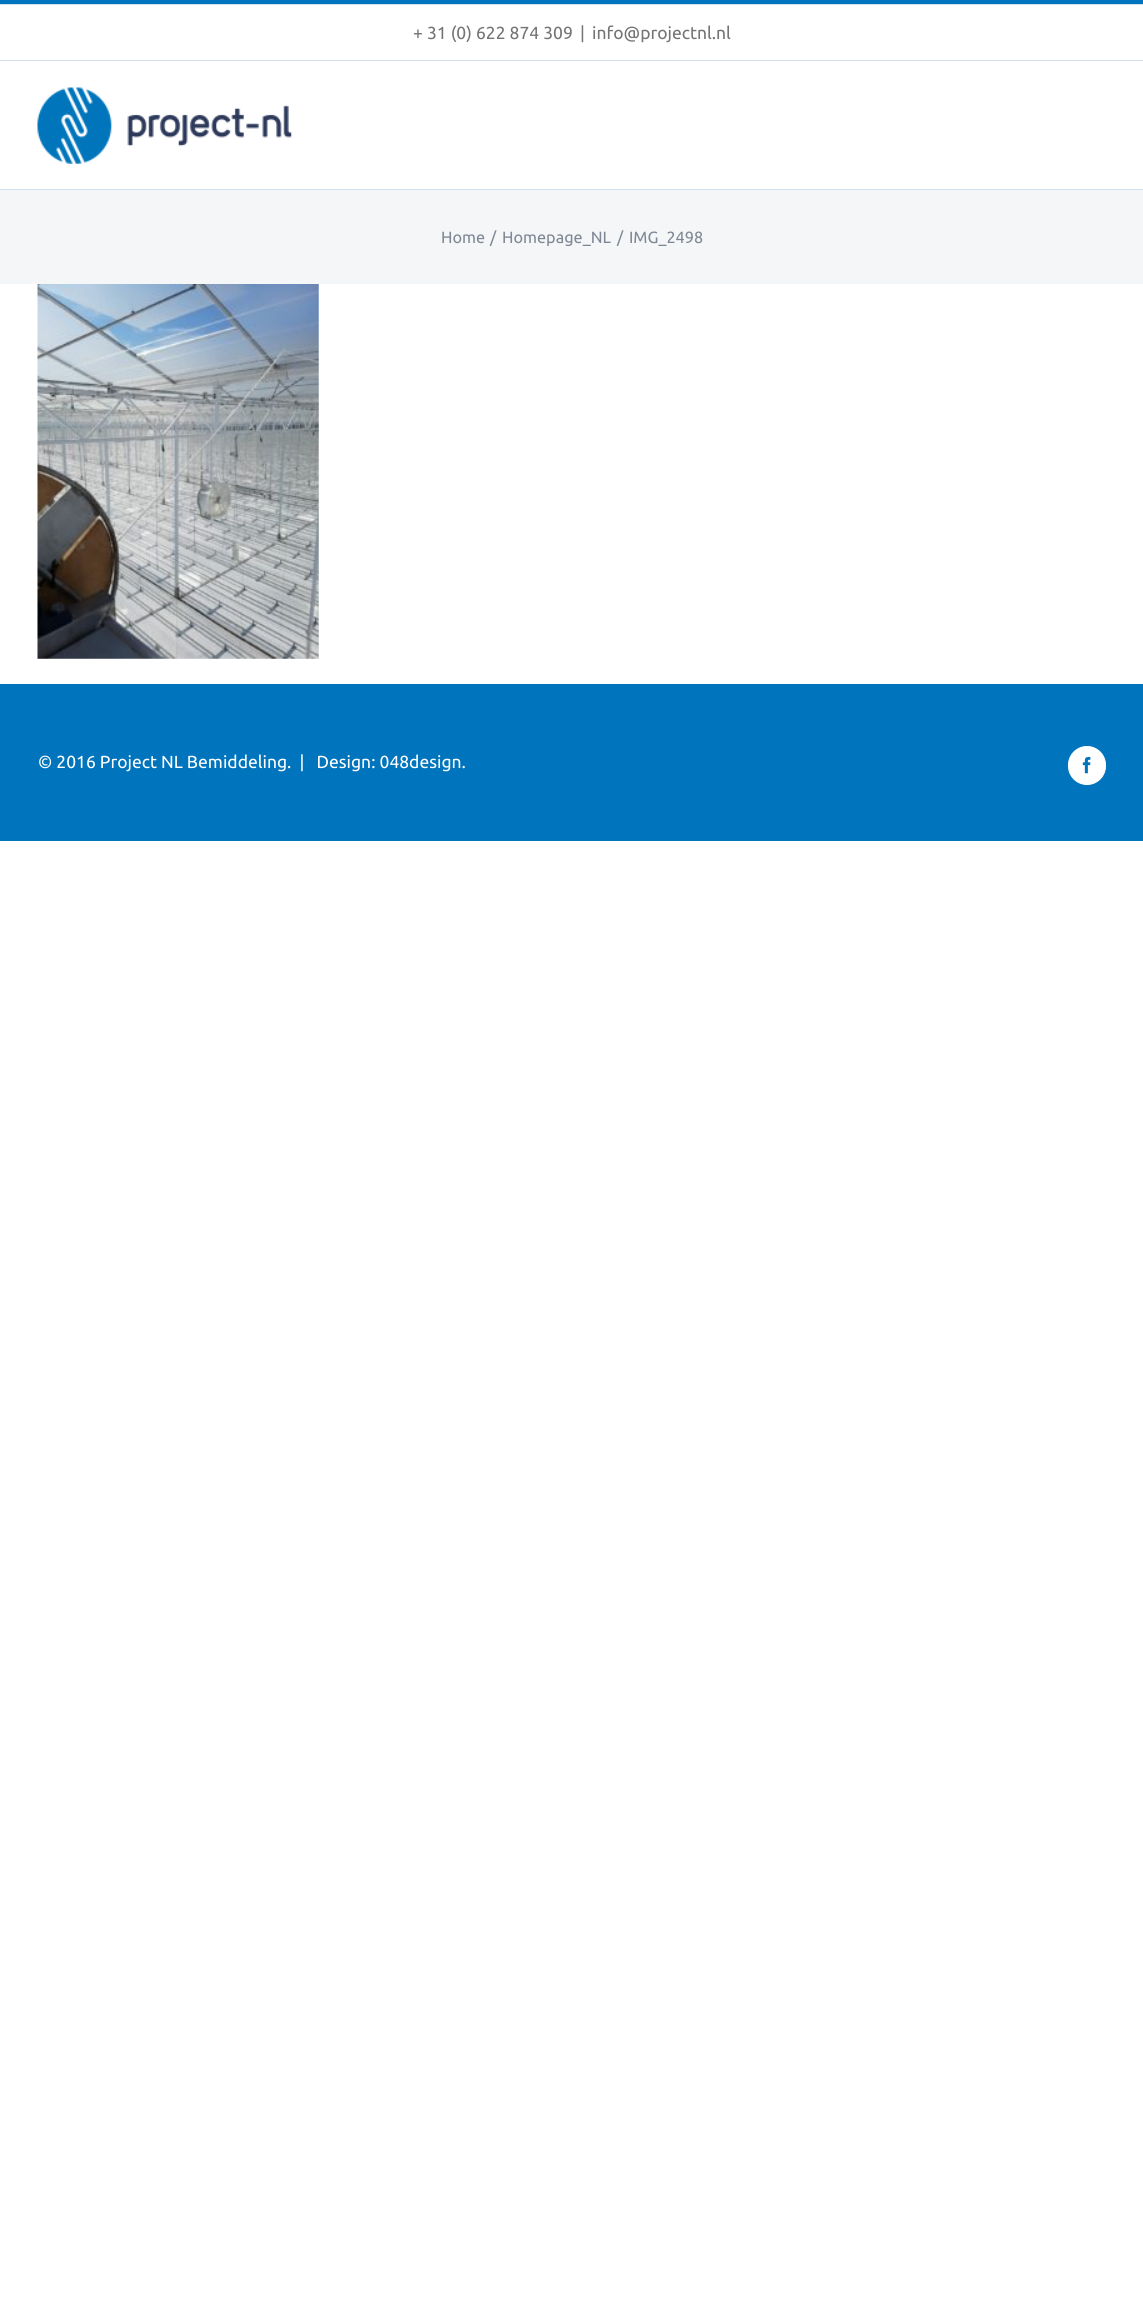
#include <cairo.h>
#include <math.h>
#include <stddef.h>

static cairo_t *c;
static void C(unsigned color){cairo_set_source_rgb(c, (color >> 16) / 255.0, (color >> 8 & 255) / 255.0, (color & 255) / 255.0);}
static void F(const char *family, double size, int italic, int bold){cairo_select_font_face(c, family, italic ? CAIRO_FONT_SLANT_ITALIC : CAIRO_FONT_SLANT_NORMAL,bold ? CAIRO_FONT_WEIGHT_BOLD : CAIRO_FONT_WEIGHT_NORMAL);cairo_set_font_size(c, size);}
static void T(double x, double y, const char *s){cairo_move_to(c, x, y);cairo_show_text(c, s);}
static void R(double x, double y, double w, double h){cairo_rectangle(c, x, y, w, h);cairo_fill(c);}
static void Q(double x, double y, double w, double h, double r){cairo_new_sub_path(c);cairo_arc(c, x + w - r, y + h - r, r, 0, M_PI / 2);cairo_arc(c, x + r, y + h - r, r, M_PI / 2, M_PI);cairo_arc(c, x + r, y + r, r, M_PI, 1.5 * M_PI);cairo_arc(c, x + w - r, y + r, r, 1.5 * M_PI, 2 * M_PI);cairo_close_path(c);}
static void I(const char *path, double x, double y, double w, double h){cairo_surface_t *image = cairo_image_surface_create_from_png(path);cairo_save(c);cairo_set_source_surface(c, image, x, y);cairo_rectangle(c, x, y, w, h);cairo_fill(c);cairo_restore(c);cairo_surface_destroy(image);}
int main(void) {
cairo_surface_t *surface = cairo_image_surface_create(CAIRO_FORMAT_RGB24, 1143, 2297);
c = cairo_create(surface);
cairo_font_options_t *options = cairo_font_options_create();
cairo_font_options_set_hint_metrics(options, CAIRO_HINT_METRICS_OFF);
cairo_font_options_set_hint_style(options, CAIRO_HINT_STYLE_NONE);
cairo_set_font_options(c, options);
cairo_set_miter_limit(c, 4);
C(0xffffff);
cairo_paint(c);
C(0x0074bc);
R(0,0,1143,4);
C(0xd1e2f2);
R(0,60,1143,1);
R(0,4,1143,1);
F("Ubuntu",17.5,0,0);
C(0x747474);
T(413,39,"+ 31 (0) 622 874 309");
T(580,39,"|");
T(592,39,"info@projectnl.nl");
C(0xd1e2f2);
R(0,189,1143,1);
I("1.png",37,87,255,77);
C(0xf4f6f8);
R(0,190,1143,94);
F("Ubuntu",16.25,0,0);
C(0x7f8795);
T(441,243,"Home");
T(490,243,"/");
T(502,243,"Homepage_NL");
T(617,243,"/");
T(629,243,"IMG_2498");
I("2.png",37,284,282,375);
C(0x0074bc);
R(0,684,1143,157);
F("Ubuntu",17.5,0,0);
C(0xffffff);
T(38,768,"© 2016 Project NL Bemiddeling.  |   Design: 048design.");
Q(1068.5,746.5,37,38,18.5);
cairo_fill_preserve(c);
cairo_set_line_width(c,1);
cairo_stroke(c);
I("3.png",1082,757,9,17);
cairo_surface_write_to_png(surface, "o.png");
cairo_font_options_destroy(options);
cairo_destroy(c);
cairo_surface_destroy(surface);
return 0;
}
